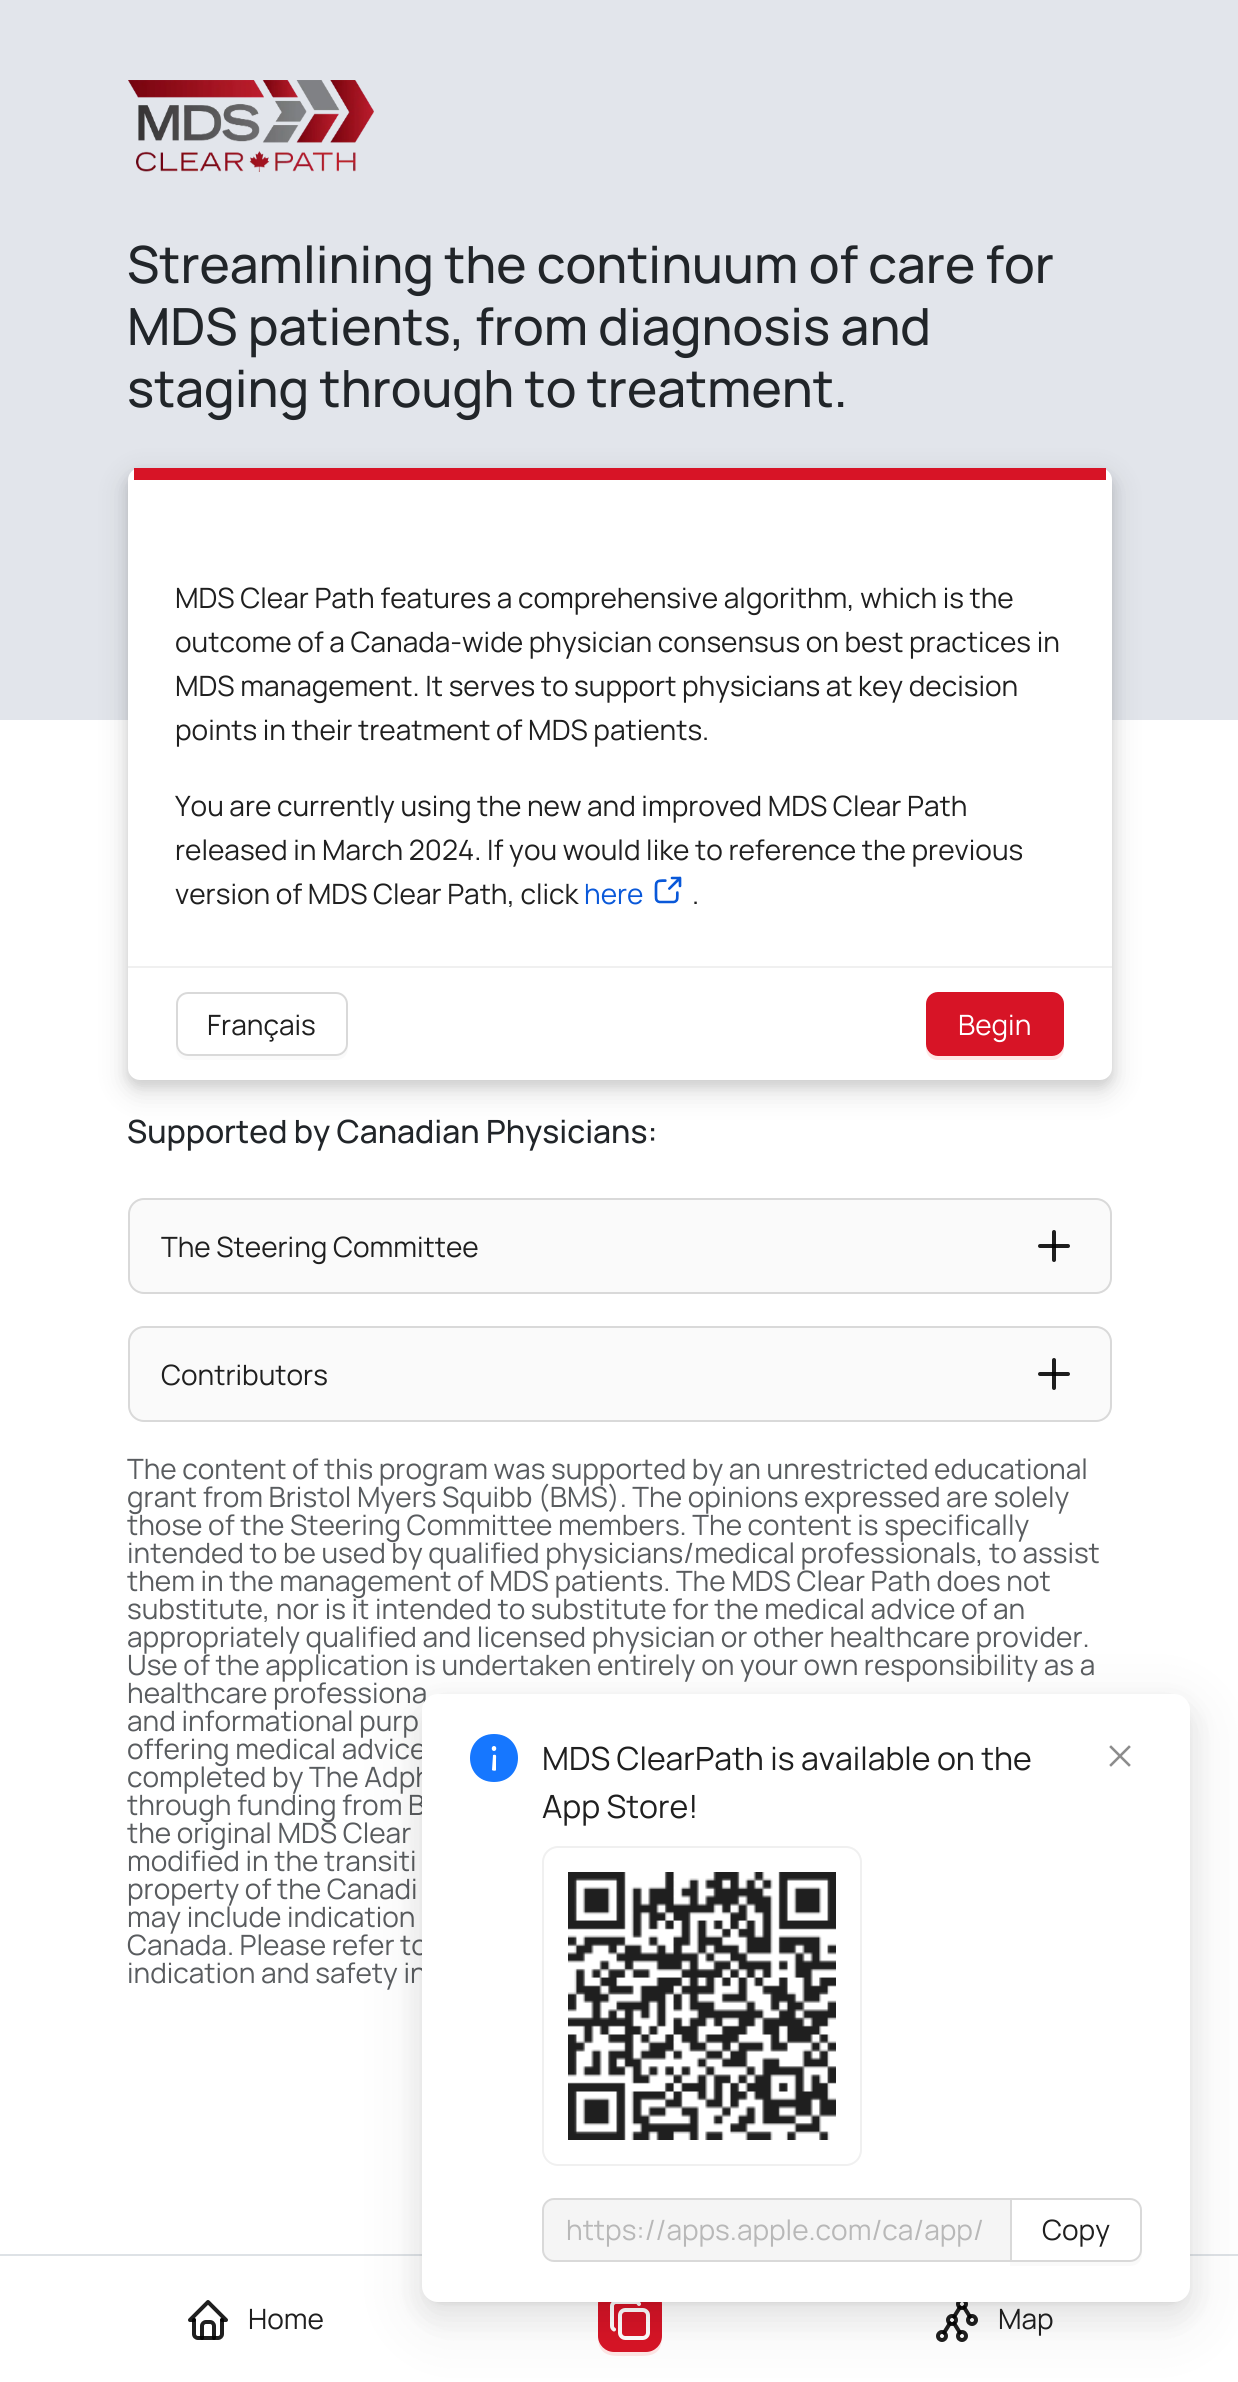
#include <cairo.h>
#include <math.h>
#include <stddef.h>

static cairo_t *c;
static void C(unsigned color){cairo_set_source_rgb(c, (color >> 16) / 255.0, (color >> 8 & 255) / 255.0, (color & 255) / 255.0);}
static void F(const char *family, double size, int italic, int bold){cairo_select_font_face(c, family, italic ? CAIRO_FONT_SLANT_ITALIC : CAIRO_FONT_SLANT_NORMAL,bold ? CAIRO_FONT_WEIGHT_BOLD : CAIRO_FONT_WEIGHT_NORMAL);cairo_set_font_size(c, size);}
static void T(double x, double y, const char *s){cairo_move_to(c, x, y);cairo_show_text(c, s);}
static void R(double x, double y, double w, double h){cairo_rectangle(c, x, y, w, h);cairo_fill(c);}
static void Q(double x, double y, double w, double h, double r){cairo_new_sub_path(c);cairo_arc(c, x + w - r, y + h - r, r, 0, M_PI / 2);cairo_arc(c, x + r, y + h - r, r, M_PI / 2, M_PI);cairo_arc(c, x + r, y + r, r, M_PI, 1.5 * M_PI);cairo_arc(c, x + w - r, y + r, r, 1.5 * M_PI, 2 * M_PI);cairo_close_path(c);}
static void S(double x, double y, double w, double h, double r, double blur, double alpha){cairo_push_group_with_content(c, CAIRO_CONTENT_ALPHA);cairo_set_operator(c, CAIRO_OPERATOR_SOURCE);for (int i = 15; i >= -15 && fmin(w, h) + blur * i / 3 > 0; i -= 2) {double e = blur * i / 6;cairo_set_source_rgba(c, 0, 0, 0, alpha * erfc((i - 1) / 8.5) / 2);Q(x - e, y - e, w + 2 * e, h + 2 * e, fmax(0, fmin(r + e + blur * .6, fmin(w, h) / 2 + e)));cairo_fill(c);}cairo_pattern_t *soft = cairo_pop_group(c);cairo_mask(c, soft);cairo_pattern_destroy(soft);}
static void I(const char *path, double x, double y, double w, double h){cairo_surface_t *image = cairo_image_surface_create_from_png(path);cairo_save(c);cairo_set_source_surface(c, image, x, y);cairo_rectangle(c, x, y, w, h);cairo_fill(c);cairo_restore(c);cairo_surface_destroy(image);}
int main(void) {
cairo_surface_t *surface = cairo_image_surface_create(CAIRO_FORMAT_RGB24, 1238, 2382);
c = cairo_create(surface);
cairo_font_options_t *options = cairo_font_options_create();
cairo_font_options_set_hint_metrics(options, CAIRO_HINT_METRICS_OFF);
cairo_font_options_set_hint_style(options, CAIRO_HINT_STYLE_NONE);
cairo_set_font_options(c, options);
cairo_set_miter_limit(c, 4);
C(0xffffff);
cairo_paint(c);
C(0xe2e5eb);
R(0,0,1238,720);
I("1.png",128,80,246,92);
F("Manrope Medium",51.25,0,0);
C(0x212529);
T(127,283,"Streamlining the continuum of care for");
T(127,345,"MDS patients, from diagnosis and");
T(127,407,"staging through to treatment.");
C(0x000000);
S(128,474,984,612,12,6,.12);
S(120,470,1000,628,20,12,.09);
C(0xffffff);
Q(128,468,984,612,12);
cairo_fill(c);
C(0xd71426);
R(134,468,972,12);
F("Manrope",28,0,0);
C(0x1f1f1f);
T(175,608,"MDS Clear Path features a comprehensive algorithm, which is the");
T(175,652,"outcome of a Canada-wide physician consensus on best practices in");
T(175,696,"MDS management. It serves to support physicians at key decision");
T(175,740,"points in their treatment of MDS patients.");
T(175,816,"You are currently using the new and improved MDS Clear Path");
T(175,860,"released in March 2024. If you would like to reference the previous");
T(175,904,"version of MDS Clear Path, click");
C(0x0958d9);
T(584,904,"here");
I("2.png",654,876,28,28);
C(0x1f1f1f);
T(692,904,".");
C(0xf0f0f0);
R(128,966,984,2);
C(0xfafafa);
cairo_new_path(c);
cairo_move_to(c,176,1044);
cairo_line_to(c,176,1048);
cairo_curve_to(c,176,1055,181,1060,188,1060);
cairo_line_to(c,336,1060);
cairo_curve_to(c,343,1060,348,1055,348,1048);
cairo_line_to(c,348,1044);
cairo_curve_to(c,348,1051,343,1056,336,1056);
cairo_line_to(c,188,1056);
cairo_curve_to(c,181,1056,176,1051,176,1044);
cairo_close_path(c);
cairo_fill(c);
Q(177,993,170,62,11);
C(0xd9d9d9);
cairo_stroke(c);
C(0x1f1f1f);
T(207,1035,"Français");
C(0xffe7e6);
cairo_new_path(c);
cairo_move_to(c,926,1044);
cairo_line_to(c,926,1048);
cairo_curve_to(c,926,1055,931,1060,938,1060);
cairo_line_to(c,1052,1060);
cairo_curve_to(c,1059,1060,1064,1055,1064,1048);
cairo_line_to(c,1064,1044);
cairo_curve_to(c,1064,1051,1059,1056,1052,1056);
cairo_line_to(c,938,1056);
cairo_curve_to(c,931,1056,926,1051,926,1044);
cairo_close_path(c);
cairo_fill(c);
C(0xd71426);
Q(926,992,138,64,12);
cairo_fill(c);
C(0xffffff);
T(958,1035,"Begin");
F("Manrope Medium",32,0,0);
C(0x212529);
T(127,1143,"Supported by Canadian Physicians:");
C(0xfafafa);
Q(129,1199,982,94,15);
cairo_fill_preserve(c);
C(0xd9d9d9);
cairo_stroke(c);
F("Manrope",28,0,0);
C(0x1f1f1f);
T(161,1257,"The Steering Committee");
cairo_new_path(c);
cairo_move_to(c,1054,1232);
cairo_line_to(c,1054,1260);
C(0x1e1e1e);
cairo_set_line_width(c,4);
cairo_set_line_cap(c,CAIRO_LINE_CAP_ROUND);
cairo_set_line_join(c,CAIRO_LINE_JOIN_ROUND);
cairo_stroke(c);
cairo_new_path(c);
cairo_move_to(c,1040,1246);
cairo_line_to(c,1068,1246);
cairo_set_source_rgba(c,0,0,0,0.88);
cairo_stroke(c);
C(0xfafafa);
Q(129,1327,982,94,15);
cairo_fill_preserve(c);
C(0xd9d9d9);
cairo_set_line_width(c,2);
cairo_set_line_cap(c,CAIRO_LINE_CAP_BUTT);
cairo_set_line_join(c,CAIRO_LINE_JOIN_MITER);
cairo_stroke(c);
C(0x1f1f1f);
T(161,1385,"Contributors");
cairo_new_path(c);
cairo_move_to(c,1054,1360);
cairo_line_to(c,1054,1388);
C(0x1e1e1e);
cairo_set_line_width(c,4);
cairo_set_line_cap(c,CAIRO_LINE_CAP_ROUND);
cairo_set_line_join(c,CAIRO_LINE_JOIN_ROUND);
cairo_stroke(c);
cairo_new_path(c);
cairo_move_to(c,1040,1374);
cairo_line_to(c,1068,1374);
cairo_set_source_rgba(c,0,0,0,0.88);
cairo_stroke(c);
C(0x595c5f);
T(127,1479,"The content of this program was supported by an unrestricted educational");
T(127,1507,"grant from Bristol Myers Squibb (BMS). The opinions expressed are solely");
T(127,1535,"those of the Steering Committee members. The content is specifically");
T(127,1563,"intended to be used by qualified physicians/medical professionals, to assist");
T(127,1591,"them in the management of MDS patients. The MDS Clear Path does not");
T(127,1619,"substitute, nor is it intended to substitute for the medical advice of an");
T(127,1647,"appropriately qualified and licensed physician or other healthcare provider.");
T(127,1675,"Use of the application is undertaken entirely on your own responsibility as a");
T(127,1703,"healthcare professiona");
T(127,1731,"and informational purp");
T(127,1759,"offering medical advice");
T(127,1787,"completed by The Adph");
T(127,1815,"through funding from B");
T(127,1843,"the original MDS Clear");
T(127,1871,"modified in the transiti");
T(127,1899,"property of the Canadi");
T(127,1927,"may include indication");
T(127,1955,"Canada. Please refer to");
T(127,1983,"indication and safety in");
C(0xdee2e6);
R(0,2254,1238,2);
I("3.png",188,2300,40,40);
C(0x1f1f1f);
T(248,2329,"Home");
C(0xffe7e6);
cairo_new_path(c);
cairo_move_to(c,598,2336);
cairo_curve_to(c,598,2358,612,2356,630,2356);
cairo_curve_to(c,648,2356,662,2358,662,2336);
cairo_curve_to(c,662,2345,655,2352,646,2352);
cairo_line_to(c,614,2352);
cairo_curve_to(c,605,2352,598,2345,598,2336);
cairo_close_path(c);
cairo_fill(c);
C(0xd71426);
Q(598,2288,64,64,16);
cairo_fill(c);
I("4.png",610,2302,40,38);
I("5.png",936,2302,42,40);
C(0x1f1f1f);
T(998,2329,"Map");
C(0x000000);
S(406,1696,800,640,32,28,.05);
S(430,1708,752,592,8,6,.12);
S(422,1706,768,608,16,16,.08);
C(0xffffff);
Q(422,1694,768,608,16);
cairo_fill(c);
C(0x1677ff);
cairo_new_path(c);
cairo_move_to(c,494,1734);
cairo_curve_to(c,462,1734,462,1782,494,1782);
cairo_curve_to(c,526,1782,526,1734,494,1734);
cairo_close_path(c);
cairo_move_to(c,496,1770);
cairo_curve_to(c,496,1771,493,1771,492,1770);
cairo_line_to(c,493,1755);
cairo_curve_to(c,497,1754,496,1756,496,1760);
cairo_close_path(c);
cairo_move_to(c,494,1751);
cairo_curve_to(c,491,1751,491,1746,494,1746);
cairo_curve_to(c,497,1746,497,1751,494,1751);
cairo_close_path(c);
cairo_fill(c);
F("Manrope",32,0,0);
C(0x1f1f1f);
T(542,1770,"MDS ClearPath is available on the");
T(542,1818,"App Store!");
Q(543,1847,318,318,15);
C(0xf0f0f0);
cairo_set_line_width(c,2);
cairo_set_line_cap(c,CAIRO_LINE_CAP_BUTT);
cairo_set_line_join(c,CAIRO_LINE_JOIN_MITER);
cairo_stroke(c);
I("6.png",568,1872,268,268);
C(0xf5f5f5);
cairo_new_path(c);
cairo_move_to(c,554,2199);
cairo_line_to(c,1011,2199);
cairo_line_to(c,1011,2261);
cairo_line_to(c,554,2261);
cairo_curve_to(c,548,2261,543,2256,543,2250);
cairo_line_to(c,543,2210);
cairo_curve_to(c,543,2204,548,2199,554,2199);
cairo_close_path(c);
cairo_fill_preserve(c);
C(0xd9d9d9);
cairo_stroke(c);
F("Manrope",28,0,0);
C(0xb8b8b8);
T(566,2240,"https://apps.apple.com/ca/app/");
C(0xfafafa);
cairo_new_path(c);
cairo_move_to(c,1010,2262);
cairo_line_to(c,1010,2266);
cairo_line_to(c,1130,2266);
cairo_curve_to(c,1137,2266,1142,2261,1142,2254);
cairo_line_to(c,1142,2250);
cairo_curve_to(c,1142,2257,1137,2262,1130,2262);
cairo_close_path(c);
cairo_fill(c);
C(0xffffff);
cairo_new_path(c);
cairo_move_to(c,1011,2199);
cairo_line_to(c,1130,2199);
cairo_curve_to(c,1136,2199,1141,2204,1141,2210);
cairo_line_to(c,1141,2250);
cairo_curve_to(c,1141,2256,1136,2261,1130,2261);
cairo_line_to(c,1011,2261);
cairo_close_path(c);
cairo_fill_preserve(c);
C(0xd9d9d9);
cairo_stroke(c);
C(0x1f1f1f);
T(1042,2240,"Copy");
I("7.png",1109,1745,22,22);
cairo_surface_write_to_png(surface, "o.png");
cairo_font_options_destroy(options);
cairo_destroy(c);
cairo_surface_destroy(surface);
return 0;
}
